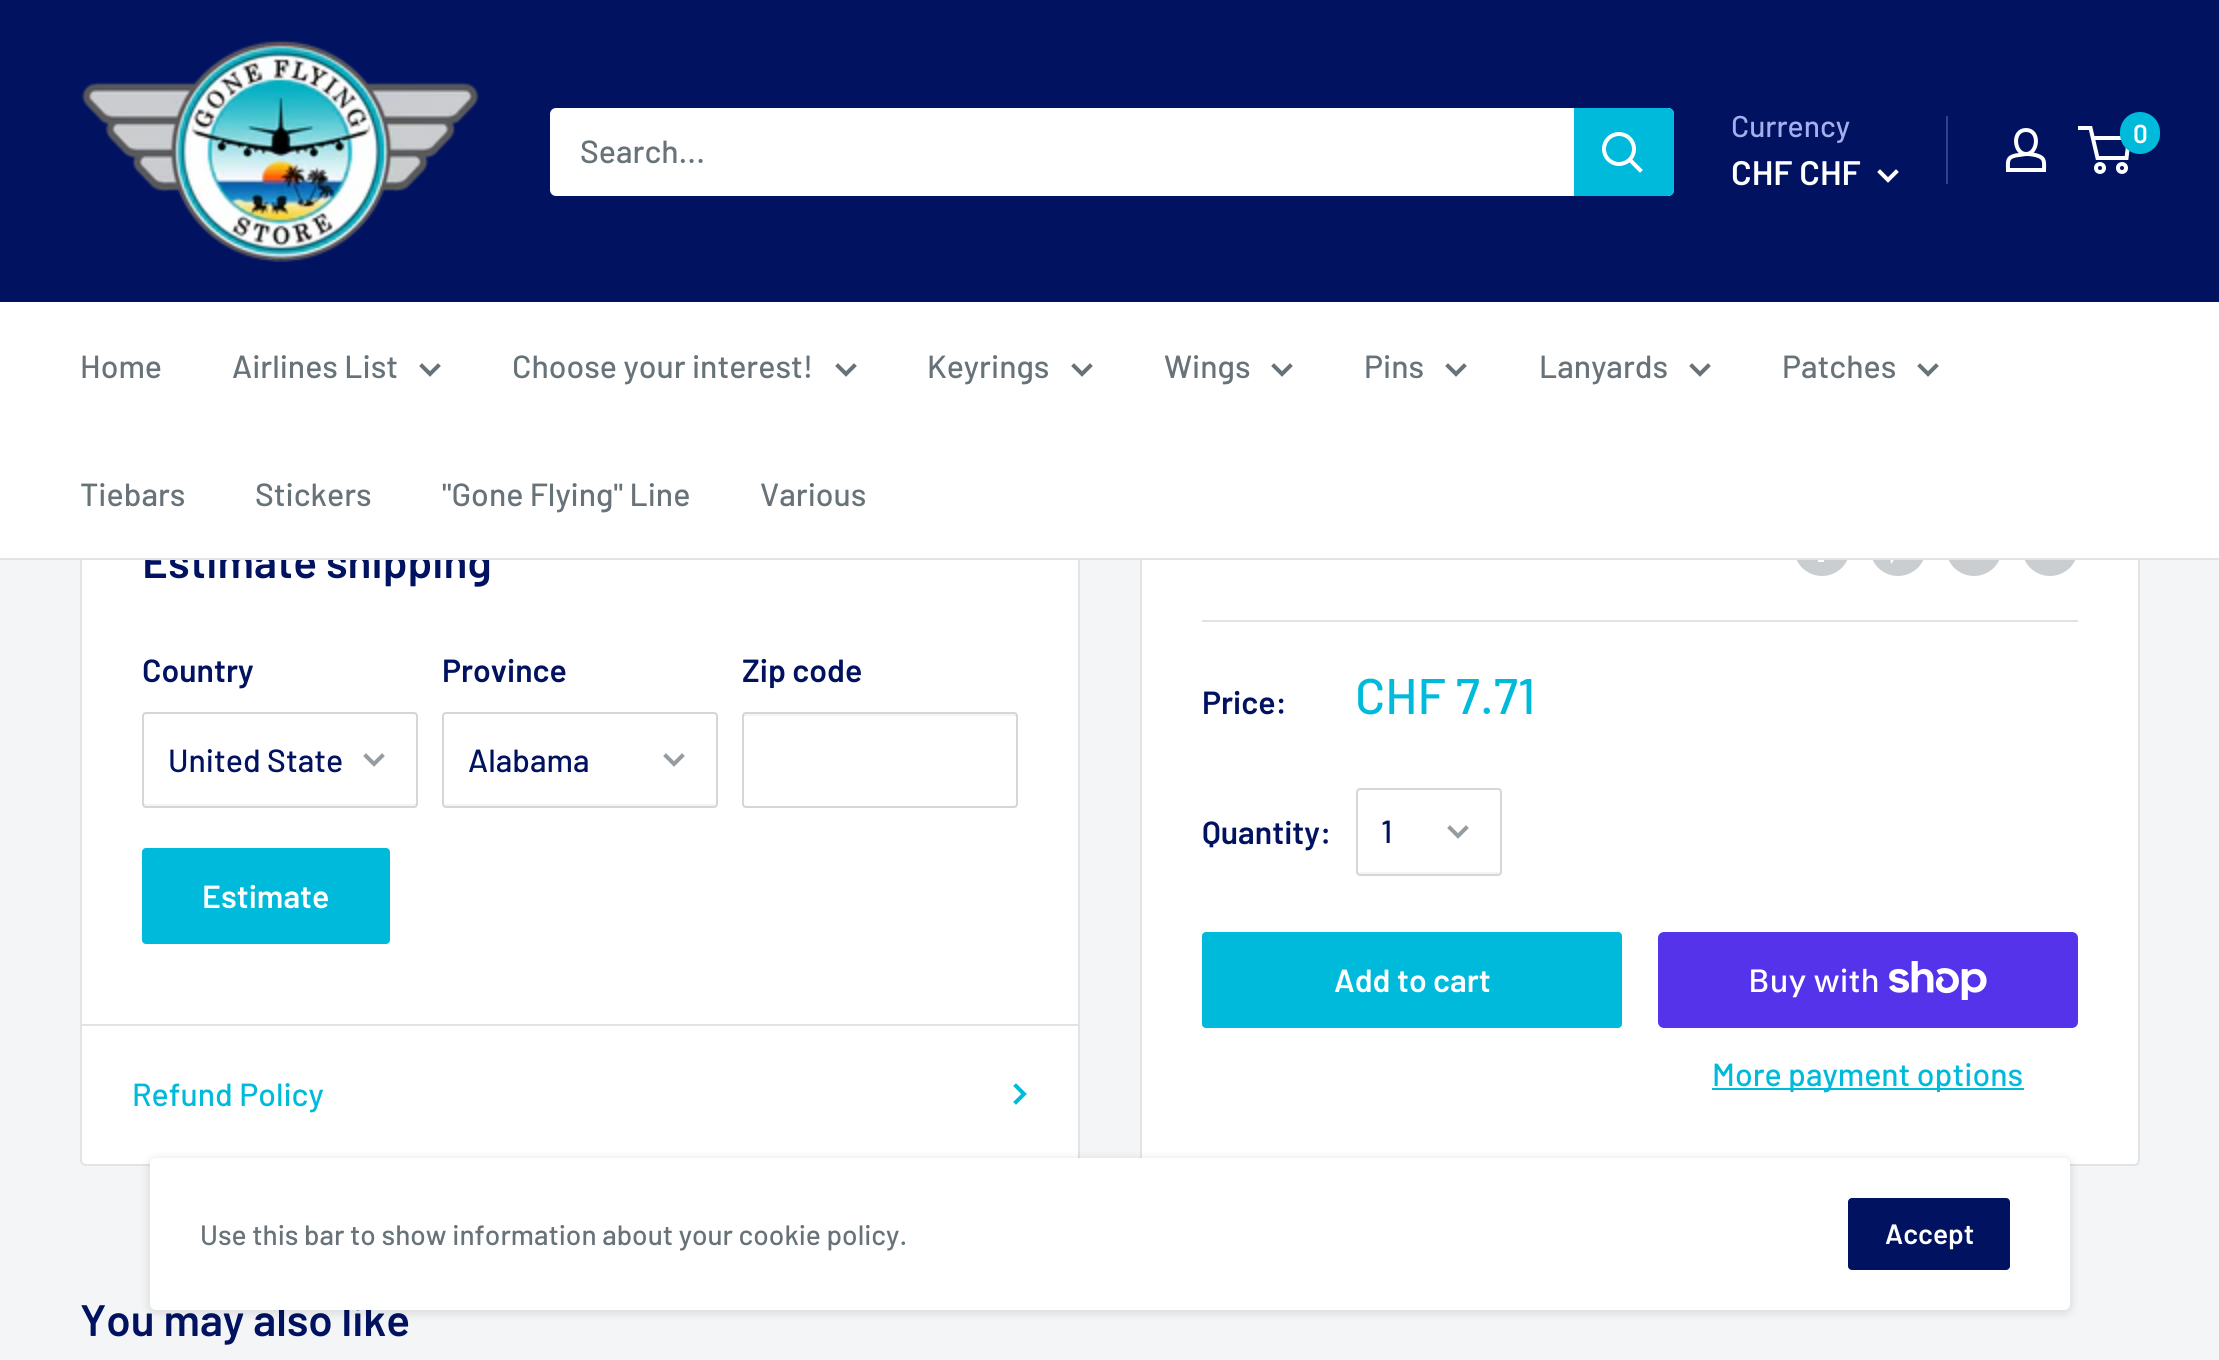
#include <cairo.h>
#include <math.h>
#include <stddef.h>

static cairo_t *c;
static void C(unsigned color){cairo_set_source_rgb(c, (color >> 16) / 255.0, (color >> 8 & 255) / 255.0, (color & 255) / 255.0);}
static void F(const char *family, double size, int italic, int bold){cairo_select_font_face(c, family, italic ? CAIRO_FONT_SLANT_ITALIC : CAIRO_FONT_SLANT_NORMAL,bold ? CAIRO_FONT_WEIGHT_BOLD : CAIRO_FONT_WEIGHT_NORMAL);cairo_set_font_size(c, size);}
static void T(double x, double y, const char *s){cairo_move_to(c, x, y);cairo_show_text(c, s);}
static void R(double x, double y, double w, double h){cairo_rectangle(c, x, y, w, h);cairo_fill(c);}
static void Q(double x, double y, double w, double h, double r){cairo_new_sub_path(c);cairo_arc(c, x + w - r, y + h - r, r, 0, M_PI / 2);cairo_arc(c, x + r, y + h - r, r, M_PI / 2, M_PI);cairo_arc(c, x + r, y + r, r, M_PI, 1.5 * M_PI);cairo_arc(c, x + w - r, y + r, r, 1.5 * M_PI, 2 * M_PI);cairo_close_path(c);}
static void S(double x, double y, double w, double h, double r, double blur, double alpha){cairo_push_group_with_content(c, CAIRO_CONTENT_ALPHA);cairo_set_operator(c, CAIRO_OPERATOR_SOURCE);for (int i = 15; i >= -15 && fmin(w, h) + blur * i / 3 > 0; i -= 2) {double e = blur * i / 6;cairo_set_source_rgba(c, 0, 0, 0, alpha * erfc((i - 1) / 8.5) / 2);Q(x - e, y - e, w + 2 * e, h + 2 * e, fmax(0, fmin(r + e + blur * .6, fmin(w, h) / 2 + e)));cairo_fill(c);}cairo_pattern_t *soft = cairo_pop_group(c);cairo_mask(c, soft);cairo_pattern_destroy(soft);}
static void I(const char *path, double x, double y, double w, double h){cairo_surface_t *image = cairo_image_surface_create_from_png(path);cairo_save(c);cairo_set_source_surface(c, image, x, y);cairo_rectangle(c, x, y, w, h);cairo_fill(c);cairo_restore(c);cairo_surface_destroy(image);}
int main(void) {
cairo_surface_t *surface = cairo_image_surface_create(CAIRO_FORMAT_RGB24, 2219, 1360);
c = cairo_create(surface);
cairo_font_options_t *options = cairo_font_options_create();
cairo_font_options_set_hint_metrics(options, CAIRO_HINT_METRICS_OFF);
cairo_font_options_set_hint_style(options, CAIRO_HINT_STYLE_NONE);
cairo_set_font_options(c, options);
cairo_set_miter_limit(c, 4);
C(0xf3f5f6);
cairo_paint(c);
C(0x011260);
R(0,0,2219,302);
I("1.png",81,40,398,222);
C(0xffffff);
Q(550,108,1124,88,6);
cairo_fill(c);
F("Barlow Medium",32,0,0);
C(0x677279);
T(580,163,"Search...");
C(0x00badb);
cairo_new_path(c);
cairo_move_to(c,1574,108);
cairo_line_to(c,1668,108);
cairo_curve_to(c,1671.5,108,1674,110.5,1674,114);
cairo_line_to(c,1674,190);
cairo_curve_to(c,1674,193.5,1671.5,196,1668,196);
cairo_line_to(c,1574,196);
cairo_close_path(c);
cairo_fill(c);
cairo_new_path(c);
cairo_move_to(c,1640,170);
cairo_line_to(c,1630,160);
C(0xffffff);
cairo_set_line_width(c,4);
cairo_set_line_cap(c,CAIRO_LINE_CAP_SQUARE);
cairo_stroke(c);
cairo_arc(c,1619,149,15,0,2 * M_PI);
cairo_set_line_cap(c,CAIRO_LINE_CAP_BUTT);
cairo_stroke(c);
F("Barlow Medium",30,0,0);
C(0xa3afef);
T(1731,137,"Currency");
F("Barlow SemiBold",34,0,0);
C(0xffffff);
T(1731,185,"CHF CHF");
cairo_new_path(c);
cairo_move_to(c,1896,172);
cairo_line_to(c,1888,180);
cairo_line_to(c,1880,172);
cairo_set_line_cap(c,CAIRO_LINE_CAP_SQUARE);
cairo_stroke(c);
C(0x32418b);
R(1946,116,2,68);
cairo_new_path(c);
cairo_move_to(c,2026,154);
cairo_curve_to(c,2030,154,2033.5,154.5,2037,155.5);
cairo_curve_to(c,2045.5,158,2044,162.5,2044,170);
cairo_line_to(c,2008,170);
cairo_curve_to(c,2008,162,2006.5,157.5,2015.5,155.5);
cairo_close_path(c);
cairo_move_to(c,2026,154);
cairo_curve_to(c,2014,154,2011.5,130,2026,130);
cairo_curve_to(c,2040.5,130,2038,154,2026,154);
cairo_close_path(c);
C(0xffffff);
cairo_set_line_cap(c,CAIRO_LINE_CAP_BUTT);
cairo_stroke(c);
cairo_arc(c,2100,168,4,0,2 * M_PI);
cairo_stroke(c);
cairo_arc(c,2122,168,4,0,2 * M_PI);
cairo_stroke(c);
cairo_new_path(c);
cairo_move_to(c,2092.5,138);
cairo_line_to(c,2129,138);
cairo_line_to(c,2126.5,158);
cairo_line_to(c,2097.5,158);
cairo_line_to(c,2090.5,128);
cairo_line_to(c,2078,128);
cairo_stroke(c);
C(0x00badb);
Q(2120,112,40,42,20);
cairo_fill(c);
F("Barlow SemiBold",26,0,0);
C(0xffffff);
T(2133,143,"0");
Q(81,467,998,698,5);
cairo_fill_preserve(c);
C(0xe1e3e4);
cairo_set_line_width(c,2);
cairo_stroke(c);
F("Barlow SemiBold",44,0,0);
C(0x011260);
T(142,578,"Estimate shipping");
C(0xffffff);
Q(1141,367,998,798,5);
cairo_fill_preserve(c);
C(0xe1e3e4);
cairo_stroke(c);
C(0xffffff);
R(0,302,2219,256);
C(0xe1e3e4);
R(0,558,2219,2);
F("Barlow Medium",32,0,0);
C(0x677279);
T(80,378,"Home");
T(232,378,"Airlines List");
cairo_new_path(c);
cairo_move_to(c,438,366);
cairo_line_to(c,430,374);
cairo_line_to(c,422,366);
cairo_set_line_width(c,4);
cairo_set_line_cap(c,CAIRO_LINE_CAP_SQUARE);
cairo_stroke(c);
T(512,378,"Choose your interest!");
cairo_new_path(c);
cairo_move_to(c,854,366);
cairo_line_to(c,846,374);
cairo_line_to(c,838,366);
cairo_stroke(c);
T(927,378,"Keyrings");
cairo_new_path(c);
cairo_move_to(c,1090,366);
cairo_line_to(c,1082,374);
cairo_line_to(c,1074,366);
cairo_stroke(c);
T(1164,378,"Wings");
cairo_new_path(c);
cairo_move_to(c,1290,366);
cairo_line_to(c,1282,374);
cairo_line_to(c,1274,366);
cairo_stroke(c);
T(1364,378,"Pins");
cairo_new_path(c);
cairo_move_to(c,1464,366);
cairo_line_to(c,1456,374);
cairo_line_to(c,1448,366);
cairo_stroke(c);
T(1539,378,"Lanyards");
cairo_new_path(c);
cairo_move_to(c,1708,366);
cairo_line_to(c,1700,374);
cairo_line_to(c,1692,366);
cairo_stroke(c);
T(1782,378,"Patches");
cairo_new_path(c);
cairo_move_to(c,1936,366);
cairo_line_to(c,1928,374);
cairo_line_to(c,1920,366);
cairo_stroke(c);
T(80,506,"Tiebars");
T(255,506,"Stickers");
T(442,506,"\"Gone Flying\" Line");
T(760,506,"Various");
F("Barlow SemiBold",32,0,0);
C(0x011260);
T(142,682,"Country");
C(0xf2f3f3);
cairo_new_path(c);
cairo_move_to(c,144,802);
cairo_line_to(c,144,804);
cairo_curve_to(c,144,805,145,806,146,806);
cairo_line_to(c,414,806);
cairo_curve_to(c,415,806,416,805,416,804);
cairo_line_to(c,416,802);
cairo_curve_to(c,416,803,415,804,414,804);
cairo_line_to(c,146,804);
cairo_curve_to(c,145,804,144,803,144,802);
cairo_close_path(c);
cairo_fill(c);
Q(143,713,274,94,3);
C(0xd4d6d8);
cairo_set_line_width(c,2);
cairo_set_line_cap(c,CAIRO_LINE_CAP_BUTT);
cairo_stroke(c);
F("Barlow Medium",32,0,0);
C(0x011260);
T(168,772,"United State");
cairo_new_path(c);
cairo_move_to(c,382,756);
cairo_line_to(c,374,764);
cairo_line_to(c,366,756);
C(0x959ca1);
cairo_set_line_width(c,4);
cairo_set_line_cap(c,CAIRO_LINE_CAP_SQUARE);
cairo_stroke(c);
F("Barlow SemiBold",32,0,0);
C(0x011260);
T(442,682,"Province");
C(0xf2f3f3);
cairo_new_path(c);
cairo_move_to(c,444,802);
cairo_line_to(c,444,804);
cairo_curve_to(c,444,805,445,806,446,806);
cairo_line_to(c,714,806);
cairo_curve_to(c,715,806,716,805,716,804);
cairo_line_to(c,716,802);
cairo_curve_to(c,716,803,715,804,714,804);
cairo_line_to(c,446,804);
cairo_curve_to(c,445,804,444,803,444,802);
cairo_close_path(c);
cairo_fill(c);
Q(443,713,274,94,3);
C(0xd4d6d8);
cairo_set_line_width(c,2);
cairo_set_line_cap(c,CAIRO_LINE_CAP_BUTT);
cairo_stroke(c);
F("Barlow Medium",32,0,0);
C(0x011260);
T(468,772,"Alabama");
cairo_new_path(c);
cairo_move_to(c,682,756);
cairo_line_to(c,674,764);
cairo_line_to(c,666,756);
C(0x959ca1);
cairo_set_line_width(c,4);
cairo_set_line_cap(c,CAIRO_LINE_CAP_SQUARE);
cairo_stroke(c);
F("Barlow SemiBold",32,0,0);
C(0x011260);
T(742,682,"Zip code");
C(0xf4f5f5);
cairo_new_path(c);
cairo_move_to(c,746,716);
cairo_line_to(c,1014,716);
cairo_curve_to(c,1015,716,1016,717,1016,718);
cairo_line_to(c,1016,716);
cairo_curve_to(c,1016,715,1015,714,1014,714);
cairo_line_to(c,746,714);
cairo_curve_to(c,745,714,744,715,744,716);
cairo_line_to(c,744,718);
cairo_curve_to(c,744,717,745,716,746,716);
cairo_close_path(c);
cairo_fill(c);
Q(743,713,274,94,3);
C(0xd4d6d8);
cairo_set_line_width(c,2);
cairo_set_line_cap(c,CAIRO_LINE_CAP_BUTT);
cairo_stroke(c);
C(0x00badb);
Q(142,848,248,96,4);
cairo_fill(c);
C(0xffffff);
T(202,908,"Estimate");
C(0xe1e3e4);
R(82,1024,996,2);
F("Barlow Medium",32,0,0);
C(0x00badb);
T(132,1106,"Refund Policy");
cairo_new_path(c);
cairo_move_to(c,1016,1086);
cairo_line_to(c,1024,1094);
cairo_line_to(c,1016,1102);
cairo_set_line_width(c,4);
cairo_set_line_cap(c,CAIRO_LINE_CAP_SQUARE);
cairo_stroke(c);
I("2.png",1796,560,52,16);
I("3.png",1872,560,52,16);
I("4.png",1948,560,52,16);
I("4.png",2024,560,52,16);
C(0xe1e3e4);
R(1202,620,876,2);
F("Barlow SemiBold",32,0,0);
C(0x011260);
T(1202,714,"Price:");
F("Barlow Medium",50,0,0);
C(0x00badb);
T(1355,714,"CHF 7.71");
F("Barlow SemiBold",32,0,0);
C(0x011260);
T(1202,844,"Quantity:");
C(0xf2f3f3);
cairo_new_path(c);
cairo_move_to(c,1358,870);
cairo_curve_to(c,1358,872,1358,874,1360,874);
cairo_line_to(c,1499,874);
cairo_curve_to(c,1500,873,1500,871,1500,870);
cairo_curve_to(c,1500,871,1499,872,1498,872);
cairo_line_to(c,1360,872);
cairo_curve_to(c,1359,872,1358,871,1358,870);
cairo_close_path(c);
cairo_fill(c);
Q(1357,789,144,86,3);
C(0xd4d6d8);
cairo_set_line_width(c,2);
cairo_set_line_cap(c,CAIRO_LINE_CAP_BUTT);
cairo_stroke(c);
F("Barlow Medium",32,0,0);
C(0x011260);
T(1381,843,"1");
cairo_new_path(c);
cairo_move_to(c,1466,828);
cairo_line_to(c,1458,836);
cairo_line_to(c,1450,828);
C(0x959ca1);
cairo_set_line_width(c,4);
cairo_set_line_cap(c,CAIRO_LINE_CAP_SQUARE);
cairo_stroke(c);
C(0x00badb);
Q(1202,932,420,96,4);
cairo_fill(c);
F("Barlow SemiBold",32,0,0);
C(0xffffff);
T(1334,992,"Add to cart");
C(0x5433eb);
Q(1658,932,420,96,6);
cairo_fill(c);
F("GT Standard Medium",32,0,0);
C(0xffffff);
T(1748,992,"Buy with");
I("5.png",1889,961,98,39);
C(0x00badb);
R(1712,1088,312,2);
F("Barlow Medium",32,0,0);
T(1712,1086,"More payment options");
F("Barlow SemiBold",44,0,0);
C(0x011260);
T(80,1336,"You may also like");
C(0x000000);
S(148,1158,1924,156,8,4,.1);
C(0xffffff);
Q(150,1158,1920,152,6);
cairo_fill(c);
F("Barlow Medium",28,0,0);
C(0x677279);
T(200,1245,"Use this bar to show information about your cookie policy.");
C(0x011260);
Q(1848,1198,162,72,4);
cairo_fill(c);
F("Barlow SemiBold",28,0,0);
C(0xffffff);
T(1885,1244,"Accept");
cairo_surface_write_to_png(surface, "o.png");
cairo_font_options_destroy(options);
cairo_destroy(c);
cairo_surface_destroy(surface);
return 0;
}
